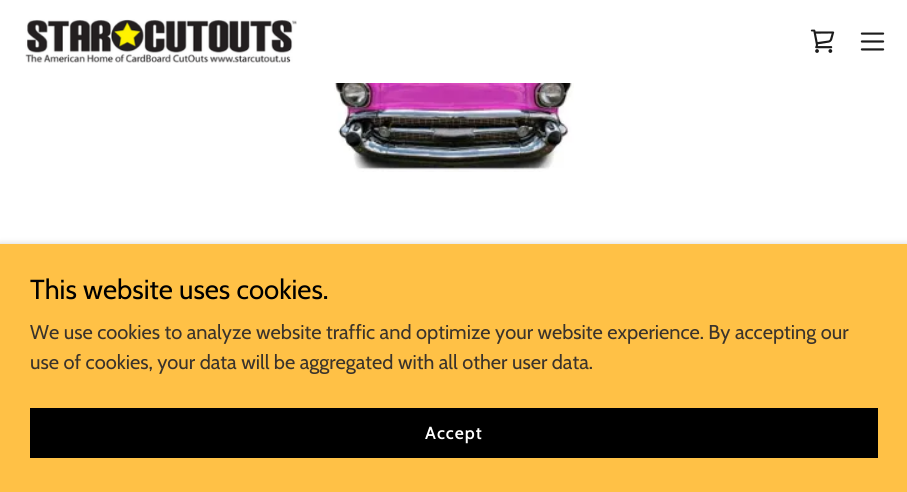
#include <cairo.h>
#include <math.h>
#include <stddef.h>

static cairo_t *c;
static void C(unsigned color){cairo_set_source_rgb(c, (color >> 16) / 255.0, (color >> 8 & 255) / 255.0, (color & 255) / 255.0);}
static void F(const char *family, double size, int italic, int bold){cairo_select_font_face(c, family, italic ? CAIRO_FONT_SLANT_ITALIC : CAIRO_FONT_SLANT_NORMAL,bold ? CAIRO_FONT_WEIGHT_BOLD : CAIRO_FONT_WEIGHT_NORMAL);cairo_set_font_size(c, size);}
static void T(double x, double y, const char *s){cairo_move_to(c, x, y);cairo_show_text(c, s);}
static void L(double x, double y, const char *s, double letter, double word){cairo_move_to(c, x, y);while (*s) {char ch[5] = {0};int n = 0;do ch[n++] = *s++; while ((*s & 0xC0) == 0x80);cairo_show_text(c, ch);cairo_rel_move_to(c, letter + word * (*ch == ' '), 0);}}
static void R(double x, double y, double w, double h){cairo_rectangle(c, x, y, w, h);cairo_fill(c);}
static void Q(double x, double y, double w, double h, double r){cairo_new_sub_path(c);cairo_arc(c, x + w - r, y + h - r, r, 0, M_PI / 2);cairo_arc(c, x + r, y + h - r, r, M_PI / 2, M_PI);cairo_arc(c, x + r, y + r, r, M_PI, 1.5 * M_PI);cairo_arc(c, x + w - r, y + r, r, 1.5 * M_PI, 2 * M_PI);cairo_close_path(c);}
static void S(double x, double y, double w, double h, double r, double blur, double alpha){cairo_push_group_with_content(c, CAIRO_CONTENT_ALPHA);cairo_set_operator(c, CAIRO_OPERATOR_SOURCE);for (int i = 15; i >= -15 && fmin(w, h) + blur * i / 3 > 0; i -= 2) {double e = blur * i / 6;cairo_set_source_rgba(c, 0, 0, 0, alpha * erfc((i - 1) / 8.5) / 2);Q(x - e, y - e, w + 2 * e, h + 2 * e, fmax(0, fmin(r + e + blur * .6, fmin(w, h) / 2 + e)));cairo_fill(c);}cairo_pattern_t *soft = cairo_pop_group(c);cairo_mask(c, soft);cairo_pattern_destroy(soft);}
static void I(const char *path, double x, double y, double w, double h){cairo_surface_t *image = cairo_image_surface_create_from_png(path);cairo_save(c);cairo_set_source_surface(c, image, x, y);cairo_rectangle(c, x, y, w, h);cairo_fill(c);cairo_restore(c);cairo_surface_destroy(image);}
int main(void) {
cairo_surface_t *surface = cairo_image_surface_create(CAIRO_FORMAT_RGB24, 907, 492);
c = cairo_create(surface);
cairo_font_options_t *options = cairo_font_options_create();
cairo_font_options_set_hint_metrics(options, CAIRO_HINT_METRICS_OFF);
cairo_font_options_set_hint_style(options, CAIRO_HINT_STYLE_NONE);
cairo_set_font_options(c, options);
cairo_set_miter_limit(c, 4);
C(0xffffff);
cairo_paint(c);
I("1.png",25,19,272,44);
I("2.png",810,29,25,24);
I("3.png",860,32,25,19);
I("4.png",334,83,240,89);
C(0x000000);
S(0,246,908,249,0,4,.3);
C(0xffc146);
R(0,244,907,248);
F("Cabin",27.5,0,0);
C(0x000000);
T(30,299,"This website uses cookies.");
F("Cabin",20,0,0);
C(0x3a332b);
T(30,339,"We use cookies to analyze website traffic and optimize your website experience. By accepting our");
T(30,369,"use of cookies, your data will be aggregated with all other user data.");
C(0x000000);
R(30,408,848,50);
F("Cabin SemiBold",17.5,0,0);
C(0xffffff);
L(425,439,"Accept",1,0);
cairo_surface_write_to_png(surface, "o.png");
cairo_font_options_destroy(options);
cairo_destroy(c);
cairo_surface_destroy(surface);
return 0;
}
